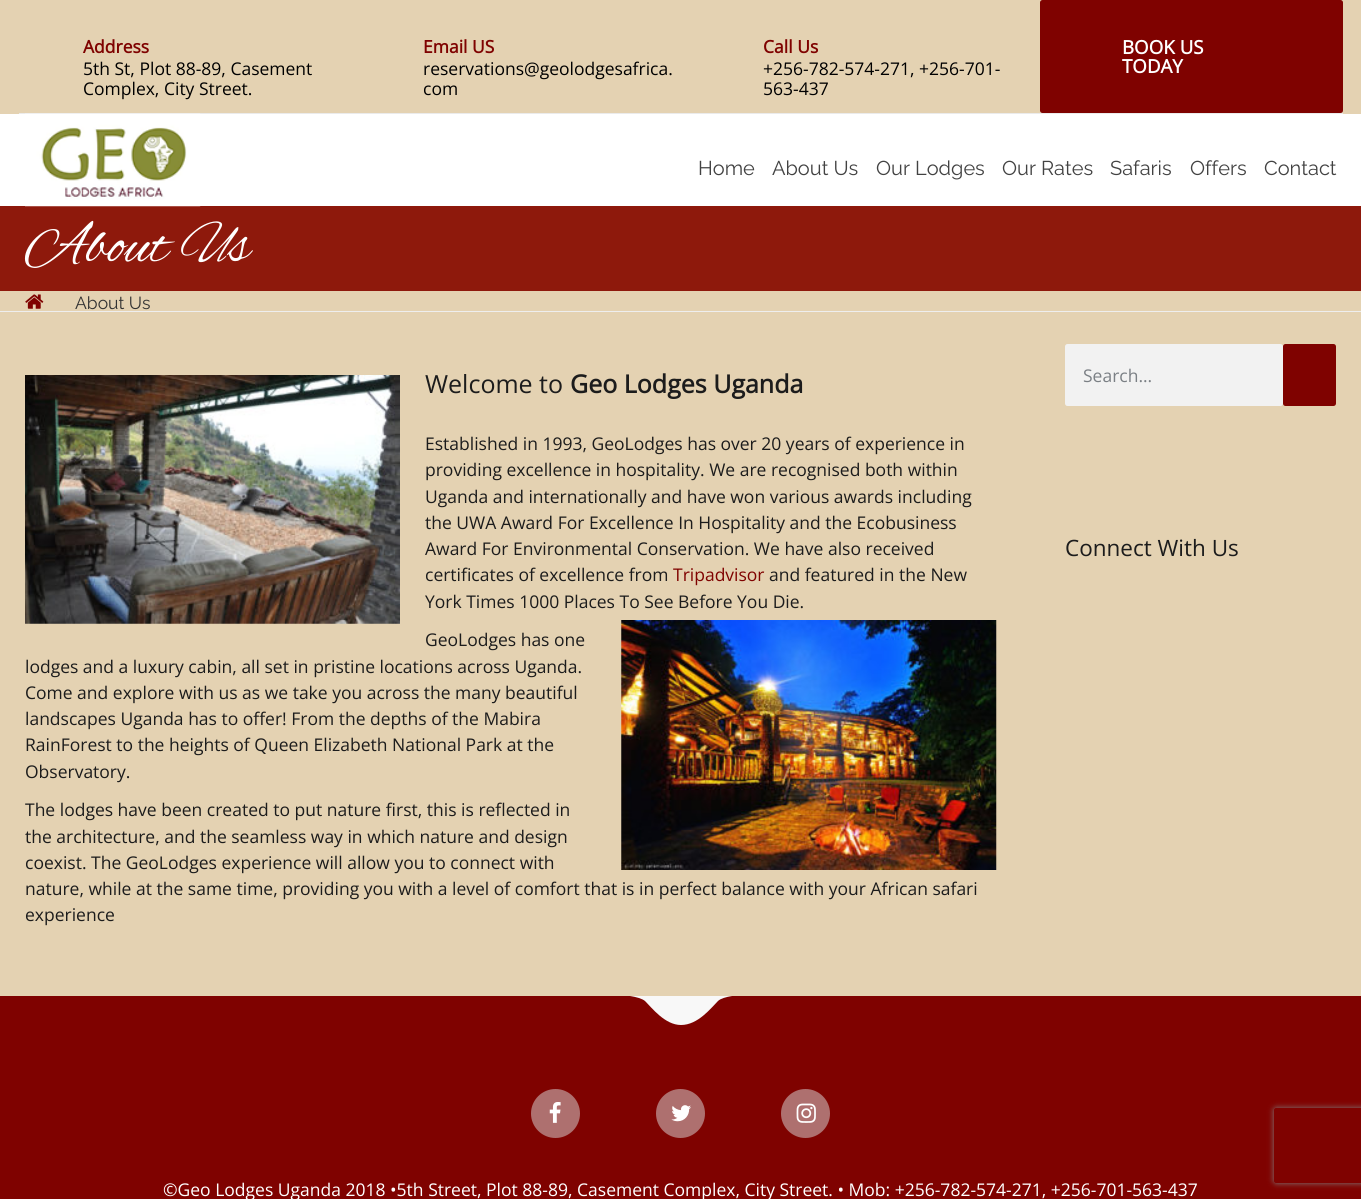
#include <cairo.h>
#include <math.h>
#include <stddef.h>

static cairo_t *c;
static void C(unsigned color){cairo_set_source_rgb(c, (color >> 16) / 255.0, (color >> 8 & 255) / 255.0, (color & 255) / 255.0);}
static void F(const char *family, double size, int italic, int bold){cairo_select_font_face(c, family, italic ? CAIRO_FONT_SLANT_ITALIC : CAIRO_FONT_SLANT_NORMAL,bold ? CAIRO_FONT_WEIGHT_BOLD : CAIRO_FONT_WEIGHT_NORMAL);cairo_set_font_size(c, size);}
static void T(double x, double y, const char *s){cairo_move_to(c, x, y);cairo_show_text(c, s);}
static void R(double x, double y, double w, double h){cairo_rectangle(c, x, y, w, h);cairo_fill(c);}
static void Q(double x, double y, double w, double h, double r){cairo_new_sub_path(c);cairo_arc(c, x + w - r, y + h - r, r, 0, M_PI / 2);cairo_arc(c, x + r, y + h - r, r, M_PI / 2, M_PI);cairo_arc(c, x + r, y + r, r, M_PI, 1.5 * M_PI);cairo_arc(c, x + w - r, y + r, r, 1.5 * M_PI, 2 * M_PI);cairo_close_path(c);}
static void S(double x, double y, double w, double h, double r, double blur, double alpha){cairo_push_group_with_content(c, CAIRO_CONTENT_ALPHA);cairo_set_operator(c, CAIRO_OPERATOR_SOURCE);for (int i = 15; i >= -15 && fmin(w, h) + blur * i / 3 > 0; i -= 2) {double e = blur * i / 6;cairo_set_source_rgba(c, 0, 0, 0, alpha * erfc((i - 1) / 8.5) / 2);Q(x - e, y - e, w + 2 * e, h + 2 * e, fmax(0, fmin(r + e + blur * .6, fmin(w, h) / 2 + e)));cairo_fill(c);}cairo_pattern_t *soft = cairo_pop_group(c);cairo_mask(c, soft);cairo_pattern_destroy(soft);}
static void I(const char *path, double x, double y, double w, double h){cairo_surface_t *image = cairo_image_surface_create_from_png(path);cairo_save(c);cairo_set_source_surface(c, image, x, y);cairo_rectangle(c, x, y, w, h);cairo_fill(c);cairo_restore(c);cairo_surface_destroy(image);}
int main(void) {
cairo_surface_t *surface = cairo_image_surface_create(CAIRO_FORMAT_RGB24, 1361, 1199);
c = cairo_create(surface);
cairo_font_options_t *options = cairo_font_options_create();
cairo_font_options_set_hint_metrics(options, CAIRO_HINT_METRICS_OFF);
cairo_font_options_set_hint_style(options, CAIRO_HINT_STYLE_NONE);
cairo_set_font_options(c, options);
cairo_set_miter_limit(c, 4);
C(0xe4d2b2);
cairo_paint(c);
F("Open Sans",17.5,0,1);
C(0x7f0200);
T(83,53,"Address");
F("Open Sans",17.5,0,0);
C(0x000000);
T(83,75,"5th St, Plot 88-89, Casement");
T(83,95,"Complex, City Street.");
F("Open Sans",17.5,0,1);
C(0x7f0200);
T(423,53,"Email US");
F("Open Sans",17.5,0,0);
C(0x000000);
T(423,75,"reservations@geolodgesafrica.");
T(423,95,"com");
F("Open Sans",17.5,0,1);
C(0x7f0200);
T(763,53,"Call Us");
F("Open Sans",17.5,0,0);
C(0x000000);
T(763,75,"+256-782-574-271, +256-701-");
T(763,95,"563-437");
C(0x7f0200);
Q(1040,0,303,113,2.5);
cairo_fill(c);
F("Open Sans",18.75,0,1);
C(0xffffff);
T(1122,54,"BOOK US");
T(1122,73,"TODAY");
C(0xebebeb);
R(19,113,1324,1);
C(0xffffff);
R(0,114,1361,92);
C(0x8e190c);
R(0,206,1361,85);
I("1.png",25,113,176,94);
F("Raleway Thin",20,0,0);
C(0x424242);
T(698,175,"Home");
T(772,175,"About Us");
T(876,175,"Our Lodges");
T(1002,175,"Our Rates");
T(1110,175,"Safaris");
T(1190,175,"Offers");
T(1264,175,"Contact");
F("Alex Brush",60,0,0);
C(0xffffff);
T(25,261,"About Us");
C(0xeeeeee);
R(0,311,1361,1);
I("2.png",25,294,19,15);
F("Raleway Thin",17.5,0,0);
C(0x333333);
T(75,309,"About Us");
I("3.png",25,375,375,249);
F("Open Sans",25,0,0);
C(0x1c1c1c);
T(425,393,"Welcome to");
F("Open Sans",25,0,1);
T(570,393,"Geo Lodges Uganda");
F("Open Sans",17.5,0,0);
T(425,450,"Established in 1993, GeoLodges has over 20 years of experience in");
T(425,476,"providing excellence in hospitality. We are recognised both within");
T(425,503,"Uganda and internationally and have won various awards including");
T(425,529,"the UWA Award For Excellence In Hospitality and the Ecobusiness");
T(425,555,"Award For Environmental Conservation. We have also received");
T(425,581,"certificates of excellence from");
C(0x7f0200);
T(673,581,"Tripadvisor");
C(0x1c1c1c);
T(769,581,"and featured in the New");
T(425,608,"York Times 1000 Places To See Before You Die.");
I("4.png",621,620,376,250);
T(425,646,"GeoLodges has one");
T(25,673,"lodges and a luxury cabin, all set in pristine locations across Uganda.");
T(25,699,"Come and explore with us as we take you across the many beautiful");
T(25,725,"landscapes Uganda has to offer! From the depths of the Mabira");
T(25,751,"RainForest to the heights of Queen Elizabeth National Park at the");
T(25,778,"Observatory.");
T(25,816,"The lodges have been created to put nature first, this is reflected in");
T(25,843,"the architecture, and the seamless way in which nature and design");
T(25,869,"coexist. The GeoLodges experience will allow you to connect with");
T(25,895,"nature, while at the same time, providing you with a level of comfort that is in perfect balance with your African safari");
T(25,921,"experience");
C(0xf2f2f2);
Q(1065,344,218,62,2.5);
cairo_fill(c);
C(0x7b8085);
T(1083,382,"Search...");
C(0x7f0200);
Q(1283,344,53,62,2.5);
cairo_fill(c);
F("Open Sans",22.5,0,0);
C(0x1c1c1c);
T(1065,556,"Connect With Us");
C(0x7f0200);
R(0,996,1361,203);
cairo_save(c);
cairo_rectangle(c,621,996,120,29);
cairo_clip(c);
C(0xf8f8f8);
cairo_set_fill_rule(c,CAIRO_FILL_RULE_EVEN_ODD);
cairo_new_path(c);
cairo_move_to(c,681,995);
cairo_line_to(c,621,995);
cairo_curve_to(c,621,995,639,996,645,1001);
cairo_curve_to(c,652,1008,665,1025,681,1025);
cairo_curve_to(c,698,1025,711,1008,718,1001);
cairo_curve_to(c,723,996,741,995,741,995);
cairo_close_path(c);
cairo_fill(c);
cairo_restore(c);
C(0xae706f);
cairo_arc(c,555.5,1113.5,24.5,0,2 * M_PI);
cairo_fill(c);
I("5.png",549,1102,12,21);
cairo_arc(c,680.5,1113.5,24.5,0,2 * M_PI);
cairo_fill(c);
I("6.png",671,1105,20,17);
cairo_arc(c,805.5,1113.5,24.5,0,2 * M_PI);
cairo_fill(c);
I("7.png",796,1103,20,20);
F("Open Sans",17.5,0,0);
C(0xffffff);
T(163,1196,"©Geo Lodges Uganda 2018 •5th Street, Plot 88-89, Casement Complex, City Street. • Mob: +256-782-574-271, +256-701-563-437");
cairo_save(c);
cairo_set_fill_rule(c,CAIRO_FILL_RULE_EVEN_ODD);
cairo_new_path(c);
cairo_move_to(c,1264,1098);
cairo_line_to(c,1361,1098);
cairo_line_to(c,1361,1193);
cairo_line_to(c,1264,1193);
cairo_close_path(c);
cairo_move_to(c,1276.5,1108);
cairo_line_to(c,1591.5,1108);
cairo_curve_to(c,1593,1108,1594,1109,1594,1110.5);
cairo_line_to(c,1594,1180.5);
cairo_curve_to(c,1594,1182,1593,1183,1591.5,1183);
cairo_line_to(c,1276.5,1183);
cairo_curve_to(c,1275,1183,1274,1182,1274,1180.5);
cairo_line_to(c,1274,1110.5);
cairo_curve_to(c,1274,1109,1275,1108,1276.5,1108);
cairo_close_path(c);
cairo_clip(c);
C(0x808080);
S(1274,1108,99,75,2.5,3,1);
cairo_restore(c);
cairo_surface_write_to_png(surface, "o.png");
cairo_font_options_destroy(options);
cairo_destroy(c);
cairo_surface_destroy(surface);
return 0;
}
